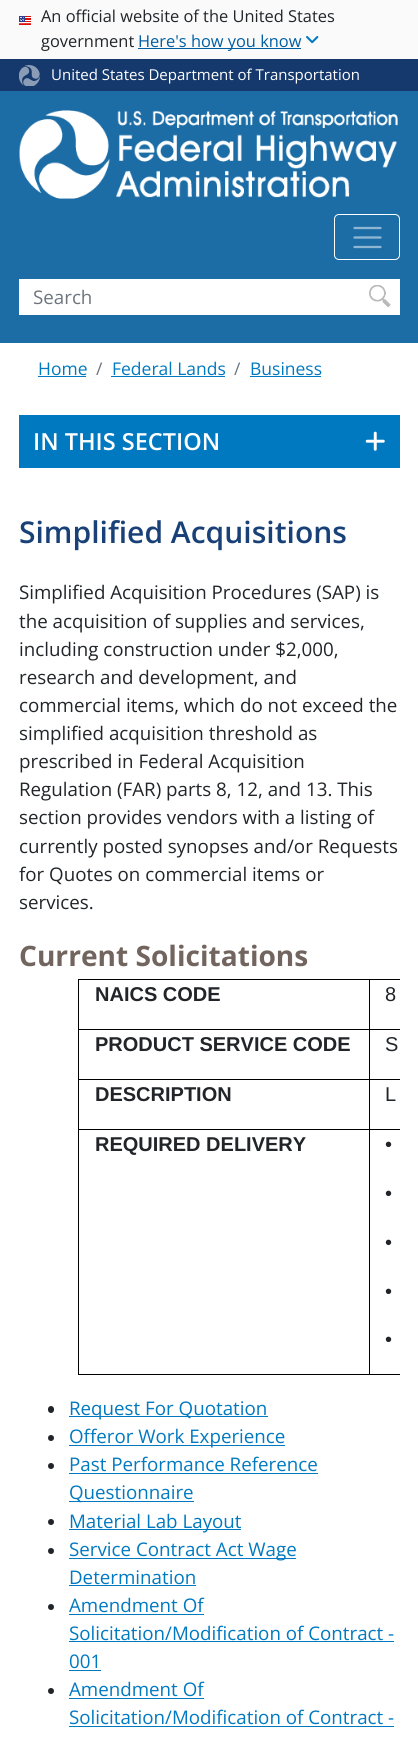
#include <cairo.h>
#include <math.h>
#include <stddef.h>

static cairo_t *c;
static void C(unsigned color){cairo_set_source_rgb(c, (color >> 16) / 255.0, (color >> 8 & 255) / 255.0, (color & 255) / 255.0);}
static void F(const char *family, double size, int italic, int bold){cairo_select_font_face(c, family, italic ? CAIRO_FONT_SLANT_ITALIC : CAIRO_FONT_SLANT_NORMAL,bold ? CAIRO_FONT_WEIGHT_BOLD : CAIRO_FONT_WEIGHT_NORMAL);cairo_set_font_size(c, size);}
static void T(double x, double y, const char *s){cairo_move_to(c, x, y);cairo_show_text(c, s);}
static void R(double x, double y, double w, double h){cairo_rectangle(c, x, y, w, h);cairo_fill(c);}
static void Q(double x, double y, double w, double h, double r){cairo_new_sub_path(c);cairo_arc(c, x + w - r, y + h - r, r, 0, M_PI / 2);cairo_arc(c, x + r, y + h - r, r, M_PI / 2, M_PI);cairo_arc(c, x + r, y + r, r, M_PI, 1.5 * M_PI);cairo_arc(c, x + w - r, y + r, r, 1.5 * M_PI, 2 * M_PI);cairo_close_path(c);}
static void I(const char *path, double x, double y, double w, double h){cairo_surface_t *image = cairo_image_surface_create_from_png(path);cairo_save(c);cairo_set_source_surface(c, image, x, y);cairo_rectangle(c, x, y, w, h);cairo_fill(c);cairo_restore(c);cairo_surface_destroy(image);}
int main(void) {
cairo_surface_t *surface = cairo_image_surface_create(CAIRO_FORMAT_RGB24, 418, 1744);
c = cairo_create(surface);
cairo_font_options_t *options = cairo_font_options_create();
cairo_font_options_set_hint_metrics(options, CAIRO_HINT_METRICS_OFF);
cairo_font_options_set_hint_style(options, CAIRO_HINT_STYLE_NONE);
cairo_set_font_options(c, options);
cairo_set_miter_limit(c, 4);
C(0xffffff);
cairo_paint(c);
C(0xfafafa);
R(0,0,418,59);
I("1.png",19,16,12,9);
F("Open Sans",16.4,0,0);
C(0x212529);
T(41,22,"An official website of the United States");
T(41,47,"government");
C(0x005ea2);
R(138,48,163,1);
T(138,47,"Here's how you know");
I("2.png",306,36,13,8);
C(0x15396c);
R(0,59,418,32);
I("3.png",19,65,21,21);
F("Open Sans",15,0,0);
C(0xffffff);
T(51,80,"United States Department of Transportation");
C(0x1c6da6);
R(0,91,418,252);
I("4.png",19,110,379,89);
Q(334.5,214.5,65,45,4.5);
C(0xffffff);
cairo_set_line_width(c,1);
cairo_stroke(c);
cairo_new_path(c);
cairo_move_to(c,354.5,228);
cairo_line_to(c,380.5,228);
cairo_move_to(c,354.5,237.5);
cairo_line_to(c,380.5,237.5);
cairo_move_to(c,354.5,247);
cairo_line_to(c,380.5,247);
C(0x8eb6d3);
cairo_set_line_width(c,2.3);
cairo_set_line_cap(c,CAIRO_LINE_CAP_ROUND);
cairo_stroke(c);
C(0xffffff);
R(19,279,381,36);
F("Open Sans",18.75,0,0);
C(0x6c757d);
T(33,304,"Search");
I("5.png",369,285,22,22);
F("Open Sans",17.5,0,0);
C(0x0079c0);
T(38,375,"Home");
R(38,376,48,1);
C(0x6c757d);
T(96,375,"/");
C(0x0079c0);
T(112,375,"Federal Lands");
R(111,376,114,1);
C(0x6c757d);
T(234,375,"/");
C(0x0079c0);
T(250,375,"Business");
R(250,376,71,1);
R(19,415,381,53);
F("Open Sans SemiBold",23.5,0,0);
C(0xffffff);
T(33,450,"IN THIS SECTION");
I("6.png",365,431,20,20);
F("Open Sans SemiBold",30,0,0);
C(0x194178);
T(19,543,"Simplified Acquisitions");
F("Open Sans",18.75,0,0);
C(0x212529);
T(19,599,"Simplified Acquisition Procedures (SAP) is");
T(19,628,"the acquisition of supplies and services,");
T(19,656,"including construction under $2,000,");
T(19,684,"research and development, and");
T(19,712,"commercial items, which do not exceed the");
T(19,740,"simplified acquisition threshold as");
T(19,768,"prescribed in Federal Acquisition");
T(19,796,"Regulation (FAR) parts 8, 12, and 13. This");
T(19,824,"section provides vendors with a listing of");
T(19,853,"currently posted synopses and/or Requests");
T(19,881,"for Quotes on commercial items or");
T(19,909,"services.");
F("Open Sans",28.1,0,1);
C(0x72655f);
T(19,966,"Current Solicitations");
C(0x000000);
R(78,979,322,1);
R(369,1374,31,1);
R(369,1129,1,246);
R(369,1129,31,1);
R(369,1079,1,51);
R(369,1079,31,1);
R(369,1029,1,51);
R(369,1029,31,1);
R(369,979,1,51);
R(78,1374,292,1);
R(78,1129,1,246);
R(78,1129,292,1);
R(78,1079,1,51);
R(78,1079,292,1);
R(78,1029,1,51);
R(78,1029,292,1);
R(78,979,1,51);
F("Liberation Sans",20,0,1);
C(0x212529);
T(95,1001,"NAICS CODE");
F("Liberation Sans",20,0,0);
T(385,1001,"8");
F("Liberation Sans",20,0,1);
T(95,1051,"PRODUCT SERVICE CODE");
F("Liberation Sans",20,0,0);
T(385,1051,"S");
F("Liberation Sans",20,0,1);
T(95,1101,"DESCRIPTION");
F("Liberation Sans",20,0,0);
T(385,1101,"L");
F("Liberation Sans",20,0,1);
T(95,1151,"REQUIRED DELIVERY");
F("Liberation Sans",20,0,0);
T(385,1151,"•");
T(385,1200,"•");
T(385,1249,"•");
T(385,1298,"•");
T(385,1346,"•");
Q(48,1406,6,7,3);
cairo_fill(c);
C(0x0079c0);
R(69,1416,199,1);
F("Open Sans",18.75,0,0);
T(69,1415,"Request For Quotation");
C(0x212529);
cairo_new_path(c);
cairo_arc(c,51,1438,3,0,2 * M_PI);
cairo_fill(c);
C(0x0079c0);
R(69,1445,216,1);
T(69,1443,"Offeror Work Experience");
C(0x212529);
cairo_new_path(c);
cairo_arc(c,51,1466,3,0,2 * M_PI);
cairo_fill(c);
C(0x0079c0);
T(69,1471,"Past Performance Reference");
R(69,1473,249,1);
R(69,1501,125,1);
T(69,1499,"Questionnaire");
C(0x212529);
cairo_new_path(c);
cairo_arc(c,51,1522,3,0,2 * M_PI);
cairo_fill(c);
C(0x0079c0);
R(69,1529,172,1);
T(69,1528,"Material Lab Layout");
C(0x212529);
cairo_new_path(c);
cairo_arc(c,51,1551,3,0,2 * M_PI);
cairo_fill(c);
C(0x0079c0);
R(69,1558,227,1);
T(69,1556,"Service Contract Act Wage");
T(69,1584,"Determination");
R(69,1585,127,1);
C(0x212529);
cairo_new_path(c);
cairo_arc(c,51,1607,3,0,2 * M_PI);
cairo_fill(c);
C(0x0079c0);
T(69,1612,"Amendment Of");
R(69,1614,135,1);
T(69,1640,"Solicitation/Modification of Contract -");
R(69,1641,325,1);
T(69,1668,"001");
R(69,1670,32,1);
C(0x212529);
cairo_new_path(c);
cairo_arc(c,51,1691,3,0,2 * M_PI);
cairo_fill(c);
C(0x0079c0);
T(69,1696,"Amendment Of");
R(69,1698,135,1);
T(69,1724,"Solicitation/Modification of Contract -");
R(69,1726,325,1);
cairo_surface_write_to_png(surface, "o.png");
cairo_font_options_destroy(options);
cairo_destroy(c);
cairo_surface_destroy(surface);
return 0;
}
